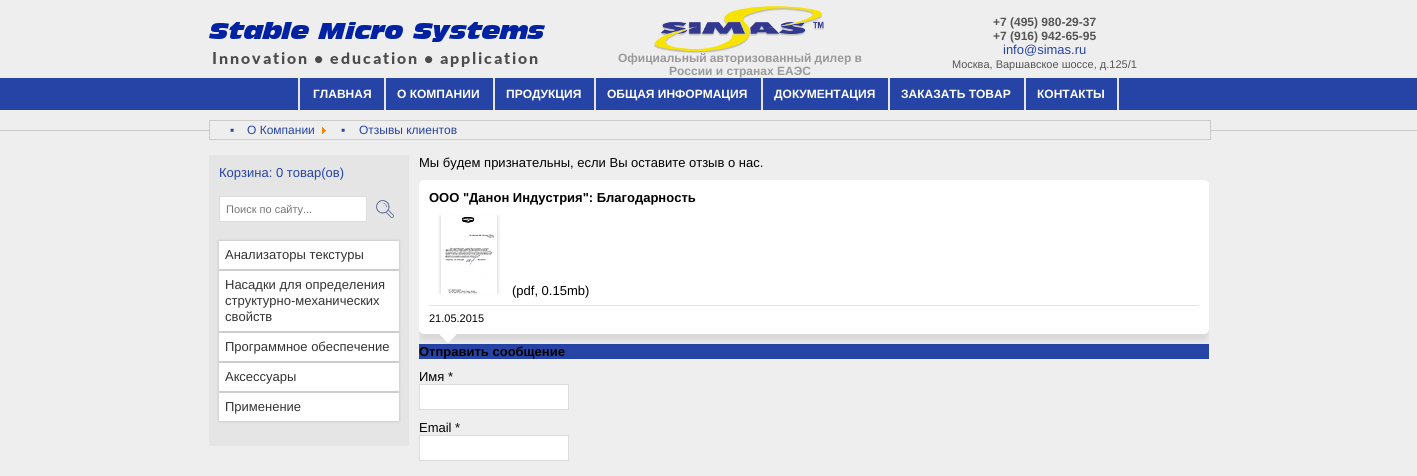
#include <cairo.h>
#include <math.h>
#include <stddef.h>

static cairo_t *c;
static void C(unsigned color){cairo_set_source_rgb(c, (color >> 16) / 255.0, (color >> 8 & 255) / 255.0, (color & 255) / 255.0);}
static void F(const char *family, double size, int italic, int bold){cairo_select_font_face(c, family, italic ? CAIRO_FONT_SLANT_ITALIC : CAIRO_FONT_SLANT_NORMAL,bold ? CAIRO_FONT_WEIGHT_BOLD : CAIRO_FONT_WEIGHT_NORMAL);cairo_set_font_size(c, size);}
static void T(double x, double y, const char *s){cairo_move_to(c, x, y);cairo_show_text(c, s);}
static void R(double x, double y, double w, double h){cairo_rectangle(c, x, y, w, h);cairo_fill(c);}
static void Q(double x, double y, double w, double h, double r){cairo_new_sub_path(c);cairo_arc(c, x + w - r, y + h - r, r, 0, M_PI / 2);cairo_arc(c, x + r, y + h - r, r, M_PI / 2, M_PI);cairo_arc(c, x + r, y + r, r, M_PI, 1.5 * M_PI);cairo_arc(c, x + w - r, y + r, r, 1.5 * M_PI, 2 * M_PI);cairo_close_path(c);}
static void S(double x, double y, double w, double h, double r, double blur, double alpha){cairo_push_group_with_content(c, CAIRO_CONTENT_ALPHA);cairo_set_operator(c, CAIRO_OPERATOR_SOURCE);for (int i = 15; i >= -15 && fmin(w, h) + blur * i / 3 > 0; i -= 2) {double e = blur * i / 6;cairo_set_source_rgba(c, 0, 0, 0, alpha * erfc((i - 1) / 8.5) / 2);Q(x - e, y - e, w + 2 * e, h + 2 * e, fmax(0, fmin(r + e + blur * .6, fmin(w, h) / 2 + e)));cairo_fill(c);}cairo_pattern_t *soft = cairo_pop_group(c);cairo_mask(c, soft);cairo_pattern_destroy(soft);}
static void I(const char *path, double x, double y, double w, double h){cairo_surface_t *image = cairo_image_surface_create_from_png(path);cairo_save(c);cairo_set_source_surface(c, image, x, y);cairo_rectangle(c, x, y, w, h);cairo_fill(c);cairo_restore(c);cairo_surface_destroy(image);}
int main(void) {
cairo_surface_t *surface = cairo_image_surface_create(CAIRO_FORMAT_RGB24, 1417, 476);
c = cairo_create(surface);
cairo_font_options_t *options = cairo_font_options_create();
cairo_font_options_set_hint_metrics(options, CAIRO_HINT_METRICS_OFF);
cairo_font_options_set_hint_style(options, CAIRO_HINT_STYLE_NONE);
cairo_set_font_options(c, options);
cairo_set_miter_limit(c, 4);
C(0xeeeeee);
cairo_paint(c);
C(0xcccccc);
R(0,130,1417,1);
I("1.png",209,22,336,45);
I("2.png",654,6,170,47);
F("Liberation Sans",12,0,1);
C(0x555555);
T(993,26,"+7 (495) 980-29-37");
T(993,40,"+7 (916) 942-65-95");
F("Liberation Sans",13,0,0);
C(0x2644a5);
T(1003,54,"info@simas.ru");
F("Liberation Sans",11,0,0);
C(0x555555);
T(952,68,"Москва, Варшавское шоссе, д.125/1");
F("Liberation Sans",12,0,1);
C(0x999999);
T(618,62,"Официальный авторизованный дилер в");
T(669,75,"России и странах ЕАЭС");
C(0x2644a5);
R(0,78,1417,32);
C(0xe5e5e5);
R(298,78,2,32);
R(384,78,2,32);
C(0xffffff);
T(313,98,"ГЛАВНАЯ");
C(0xe5e5e5);
R(493,78,2,32);
C(0xffffff);
T(397,98,"О КОМПАНИИ");
C(0xe5e5e5);
R(594,78,2,32);
C(0xffffff);
T(506,98,"ПРОДУКЦИЯ");
C(0xe5e5e5);
R(761,78,2,32);
C(0xffffff);
T(607,98,"ОБЩАЯ ИНФОРМАЦИЯ");
C(0xe5e5e5);
R(888,78,2,32);
C(0xffffff);
T(774,98,"ДОКУМЕНТАЦИЯ");
C(0xe5e5e5);
R(1024,78,2,32);
C(0xffffff);
T(901,98,"ЗАКАЗАТЬ ТОВАР");
C(0xe5e5e5);
R(1117,78,2,32);
C(0xffffff);
T(1037,98,"КОНТАКТЫ");
C(0xeeeeee);
R(210,130,1000,1);
cairo_rectangle(c,209.5,120.5,1001,19);
C(0xcccccc);
cairo_set_line_width(c,1);
cairo_stroke(c);
F("Liberation Sans",12,0,0);
C(0x2644a5);
T(230,134,"▪");
T(247,134,"О Компании");
I("3.png",322,127,4,7);
T(341,134,"▪");
T(359,134,"Отзывы клиентов");
C(0xe5e5e5);
R(209,155,200,291);
F("Liberation Sans",13,0,0);
C(0x2644a5);
T(219,177,"Корзина: 0 товар(ов)");
C(0xffffff);
cairo_rectangle(c,219.5,196.5,147,25);
cairo_fill_preserve(c);
C(0xdddddd);
cairo_stroke(c);
F("Liberation Sans",11,0,0);
C(0x757575);
T(226,213,"Поиск по сайту...");
I("4.png",376,200,18,18);
C(0x000000);
S(219,241,180,28,0,1.5,.2);
C(0xffffff);
R(219,241,180,28);
F("Liberation Sans",13,0,0);
C(0x333333);
T(225,259,"Анализаторы текстуры");
C(0x000000);
S(219,271,180,60,0,1.5,.2);
C(0xffffff);
R(219,271,180,60);
C(0x333333);
T(225,289,"Насадки для определения");
T(225,305,"структурно-механических");
T(225,321,"свойств");
C(0x000000);
S(219,333,180,28,0,1.5,.2);
C(0xffffff);
R(219,333,180,28);
C(0x333333);
T(225,351,"Программное обеспечение");
C(0x000000);
S(219,363,180,28,0,1.5,.2);
C(0xffffff);
R(219,363,180,28);
C(0x333333);
T(225,381,"Аксессуары");
C(0x000000);
S(219,393,180,28,0,1.5,.2);
C(0xffffff);
R(219,393,180,28);
C(0x333333);
T(225,411,"Применение");
C(0x000000);
T(419,167,"Мы будем признательны, если Вы оставите отзыв о нас.");
C(0x2644a5);
R(419,344,790,15);
cairo_save(c);
cairo_rectangle(c,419,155,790,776);
cairo_clip(c);
C(0x000000);
S(419,187,790,154,5,4,.1);
cairo_restore(c);
C(0xffffff);
Q(419,180,790,154,5);
cairo_fill(c);
F("Liberation Sans",13,0,1);
C(0x000000);
T(429,202,"ООО \"Данон Индустрия\": Благодарность");
I("5.png",438,215,62,80);
F("Liberation Sans",13,0,0);
T(512,295,"(pdf, 0.15mb)");
C(0xdce4ec);
R(429,305,770,1);
F("Liberation Sans",11,0,0);
C(0x000000);
T(429,322,"21.05.2015");
C(0xffffff);
cairo_new_path(c);
cairo_move_to(c,439,334);
cairo_line_to(c,457,334);
cairo_line_to(c,448,343);
cairo_close_path(c);
cairo_fill(c);
F("Liberation Sans",13,0,1);
C(0x000000);
T(419,356,"Отправить сообщение");
F("Liberation Sans",13,0,0);
T(419,381,"Имя *");
C(0xffffff);
cairo_rectangle(c,419.5,384.5,149,25);
cairo_fill_preserve(c);
C(0xdddddd);
cairo_stroke(c);
C(0x000000);
T(419,432,"Email *");
C(0xffffff);
cairo_rectangle(c,419.5,435.5,149,25);
cairo_fill_preserve(c);
C(0xdddddd);
cairo_stroke(c);
cairo_surface_write_to_png(surface, "o.png");
cairo_font_options_destroy(options);
cairo_destroy(c);
cairo_surface_destroy(surface);
return 0;
}
